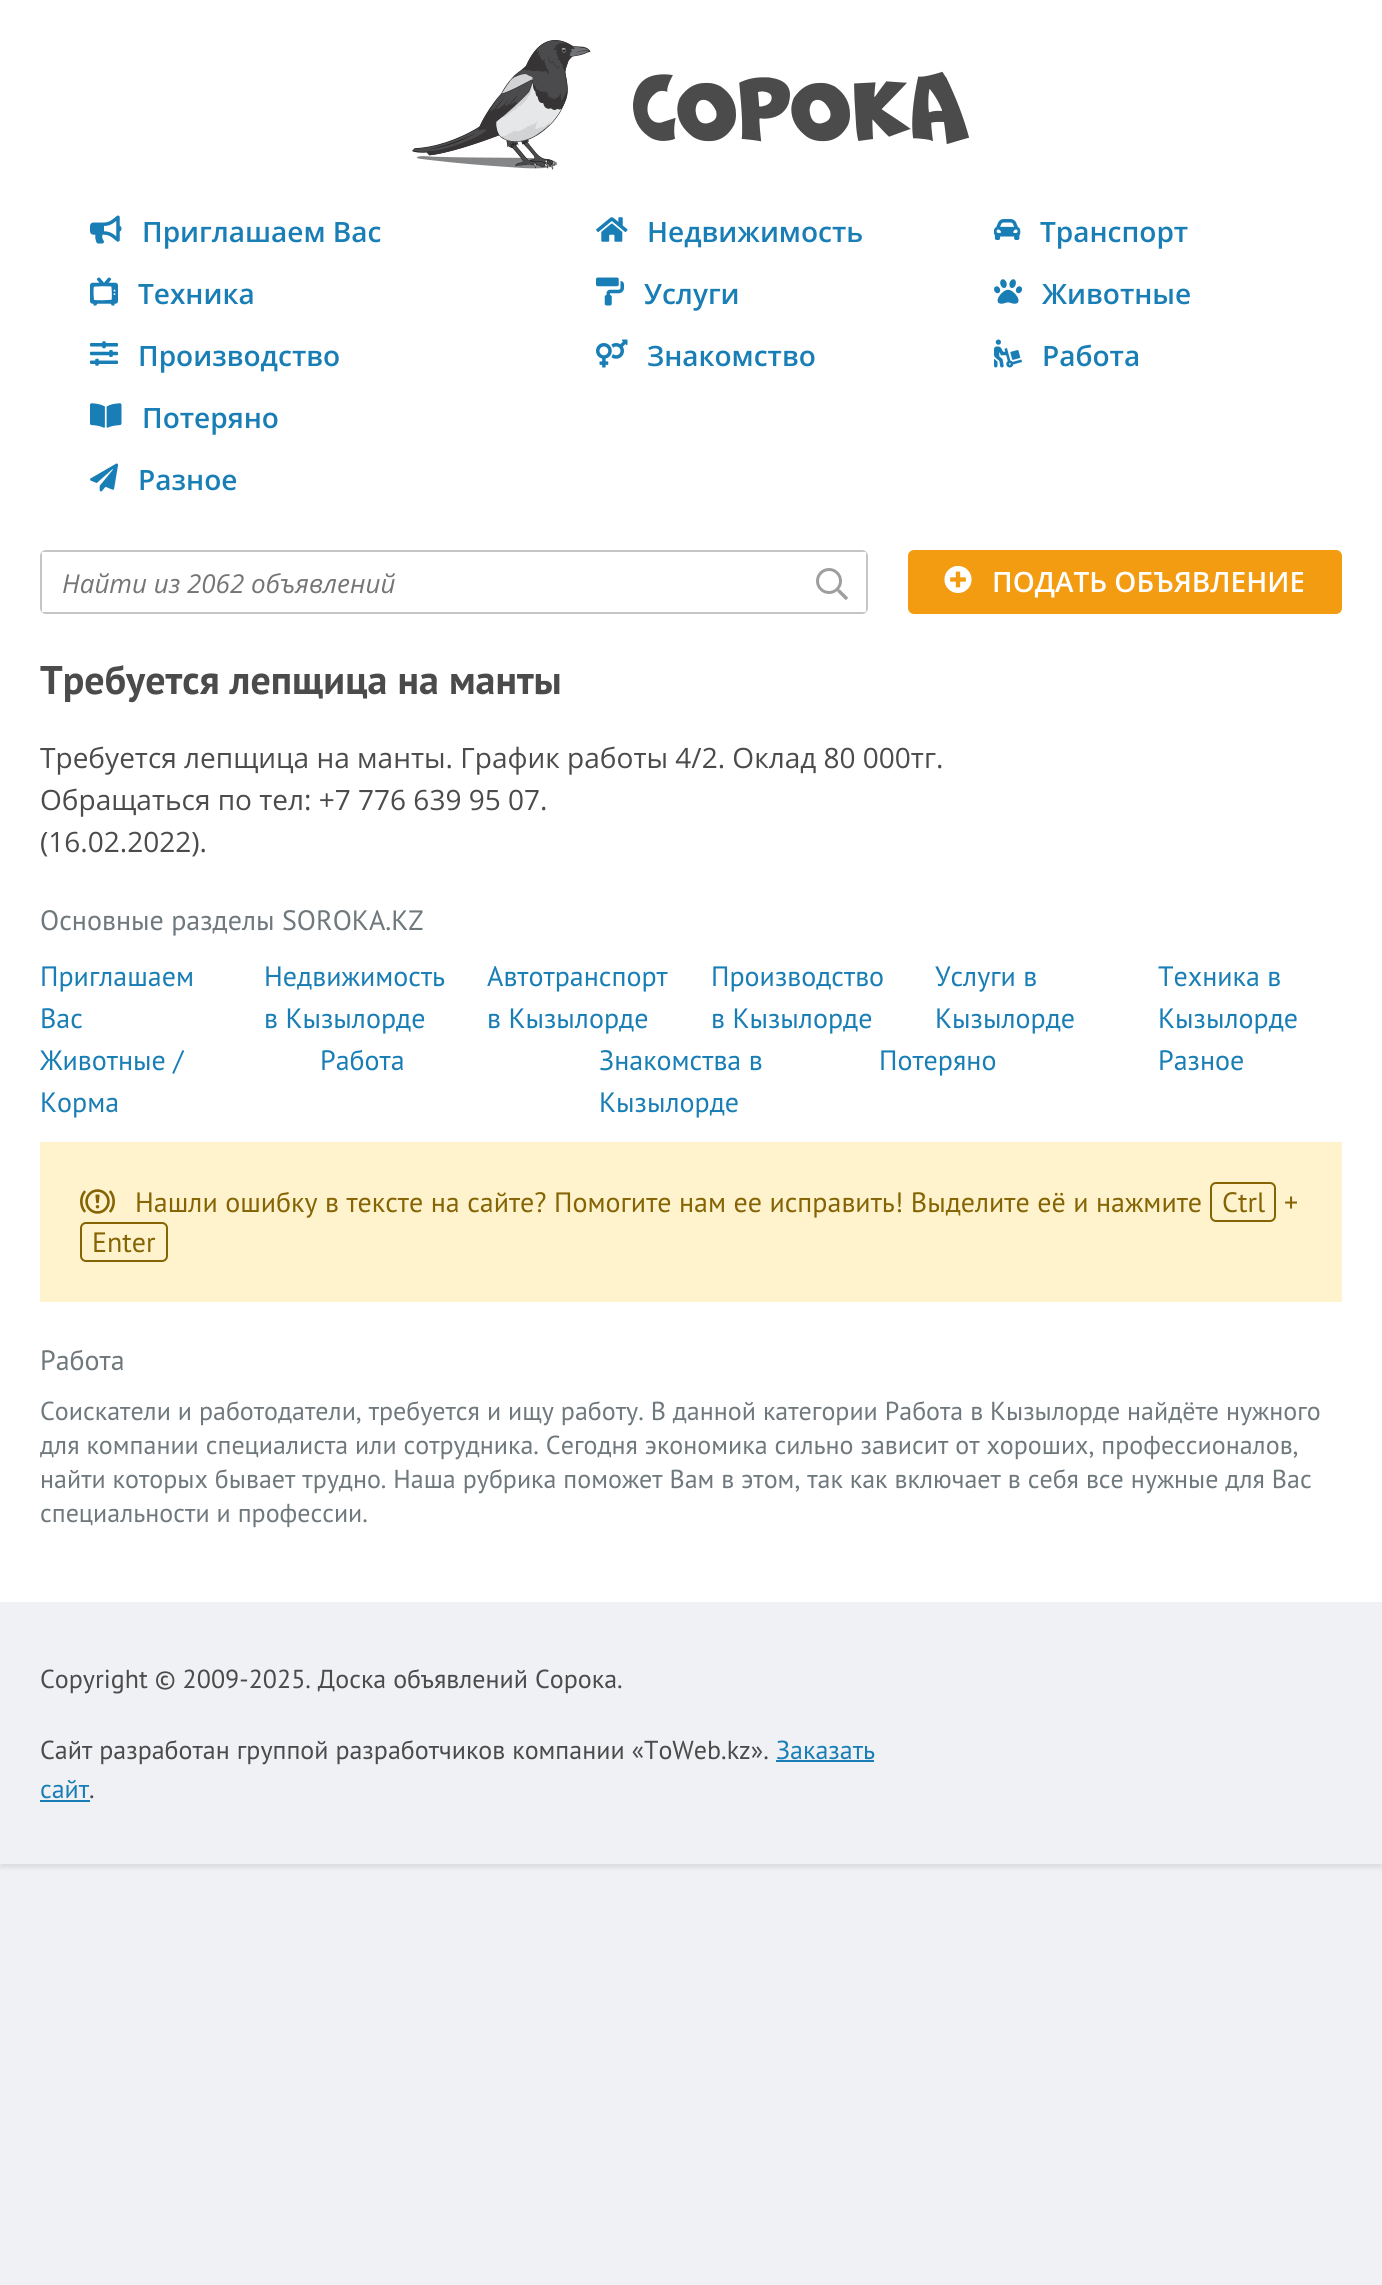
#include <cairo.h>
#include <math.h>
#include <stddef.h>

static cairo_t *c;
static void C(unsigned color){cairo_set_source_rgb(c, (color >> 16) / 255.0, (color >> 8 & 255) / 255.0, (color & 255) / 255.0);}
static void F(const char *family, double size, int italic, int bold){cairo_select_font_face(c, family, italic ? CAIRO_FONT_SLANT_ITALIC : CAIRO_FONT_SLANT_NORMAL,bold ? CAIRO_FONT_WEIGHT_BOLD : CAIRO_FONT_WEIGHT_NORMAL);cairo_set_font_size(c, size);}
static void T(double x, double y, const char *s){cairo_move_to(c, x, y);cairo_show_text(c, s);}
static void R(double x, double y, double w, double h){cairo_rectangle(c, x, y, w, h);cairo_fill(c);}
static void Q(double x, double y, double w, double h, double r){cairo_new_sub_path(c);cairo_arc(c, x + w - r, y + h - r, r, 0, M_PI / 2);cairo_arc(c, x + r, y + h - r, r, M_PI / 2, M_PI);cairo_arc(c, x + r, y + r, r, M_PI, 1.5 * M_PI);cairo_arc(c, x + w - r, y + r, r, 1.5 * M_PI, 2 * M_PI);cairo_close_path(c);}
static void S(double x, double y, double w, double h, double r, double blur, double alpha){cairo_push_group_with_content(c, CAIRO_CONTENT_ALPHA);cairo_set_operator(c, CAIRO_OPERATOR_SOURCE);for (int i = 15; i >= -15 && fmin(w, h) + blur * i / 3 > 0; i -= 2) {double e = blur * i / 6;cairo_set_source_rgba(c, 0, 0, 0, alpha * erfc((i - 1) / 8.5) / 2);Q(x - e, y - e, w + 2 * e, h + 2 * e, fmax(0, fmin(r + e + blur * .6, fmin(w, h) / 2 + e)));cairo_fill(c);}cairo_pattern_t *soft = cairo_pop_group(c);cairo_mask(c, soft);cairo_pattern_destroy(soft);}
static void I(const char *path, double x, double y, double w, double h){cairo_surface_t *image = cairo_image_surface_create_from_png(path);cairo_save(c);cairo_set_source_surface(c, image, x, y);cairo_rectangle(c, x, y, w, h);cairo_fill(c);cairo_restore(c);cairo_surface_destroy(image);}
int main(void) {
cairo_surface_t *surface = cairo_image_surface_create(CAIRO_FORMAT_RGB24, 1382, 2285);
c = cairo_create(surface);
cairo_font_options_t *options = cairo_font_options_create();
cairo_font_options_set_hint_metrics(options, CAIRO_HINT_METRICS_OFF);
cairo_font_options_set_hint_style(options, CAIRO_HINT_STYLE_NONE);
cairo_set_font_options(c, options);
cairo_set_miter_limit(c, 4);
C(0xf0f1f4);
cairo_paint(c);
C(0x000000);
S(0,4,1382,1864,0,2,.08);
C(0xffffff);
R(0,0,1382,1602);
I("1.png",412,40,179,130);
F("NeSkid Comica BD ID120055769",90,0,0);
C(0x4b4b4b);
T(633,141,"Сорока");
I("2.png",90,215,32,29);
F("Open Sans SemiBold",28,0,0);
C(0x187eb5);
T(142,242,"Приглашаем Вас");
I("3.png",90,277,28,29);
T(138,304,"Техника");
I("4.png",90,341,28,25);
T(138,366,"Производство");
I("5.png",596,217,32,25);
T(647,242,"Недвижимость");
I("6.png",596,277,28,29);
T(644,304,"Услуги");
I("7.png",596,339,32,29);
T(647,366,"Знакомство");
I("8.png",994,219,27,21);
T(1040,242,"Транспорт");
I("9.png",994,279,29,25);
T(1042,304,"Животные");
I("10.png",994,339,28,29);
T(1042,366,"Работа");
I("11.png",90,403,32,25);
T(142,428,"Потеряно");
I("12.png",90,463,28,29);
T(138,490,"Разное");
Q(41,551,826,62,5);
C(0xc5c5c5);
cairo_stroke(c);
C(0xffffff);
R(42,552,824,60);
F("Open Sans",26,1,0);
C(0x757575);
T(62,593,"Найти из 2062 объявлений");
I("13.png",816,568,32,32);
C(0xf39c12);
Q(908,550,434,64,6);
cairo_fill(c);
I("14.png",944,566,28,27);
F("Open Sans SemiBold",28,0,0);
C(0xffffff);
T(992,592,"ПОДАТЬ ОБЪЯВЛЕНИЕ");
F("PT Sans",40,0,1);
C(0x4b4b4b);
T(40,694,"Требуется лепщица на манты");
F("Open Sans",28,0,0);
T(40,768,"Требуется лепщица на манты. График работы 4/2. Оклад 80 000тг.");
T(40,810,"Обращаться по тел: +7 776 639 95 07.");
T(40,852,"(16.02.2022).");
F("PT Sans",28,0,0);
C(0x6f787c);
T(40,930,"Основные разделы SOROKA.KZ");
C(0x187eb5);
T(40,986,"Приглашаем");
T(40,1028,"Вас");
T(264,986,"Недвижимость");
T(264,1028,"в Кызылорде");
T(487,986,"Автотранспорт");
T(487,1028,"в Кызылорде");
T(711,986,"Производство");
T(711,1028,"в Кызылорде");
T(935,986,"Услуги в");
T(935,1028,"Кызылорде");
T(1158,986,"Техника в");
T(1158,1028,"Кызылорде");
T(40,1070,"Животные /");
T(40,1112,"Корма");
T(320,1070,"Работа");
T(599,1070,"Знакомства в");
T(599,1112,"Кызылорде");
T(879,1070,"Потеряно");
T(1158,1070,"Разное");
C(0xfff3cd);
R(40,1142,1302,160);
I("15.png",80,1189,35,25);
C(0x856404);
T(135,1212,"Нашли ошибку в тексте на сайте? Помогите нам ее исправить! Выделите её и нажмите");
Q(1211,1183,64,38,5);
cairo_stroke(c);
T(1222,1212,"Ctrl");
T(1284,1212,"+");
Q(81,1223,86,38,5);
cairo_stroke(c);
T(92,1252,"Enter");
C(0x6f787c);
T(40,1370,"Работа");
F("PT Sans",26,0,0);
T(40,1420,"Соискатели и работодатели, требуется и ищу работу. В данной категории Работа в Кызылорде найдёте нужного");
T(40,1454,"для компании специалиста или сотрудника. Сегодня экономика сильно зависит от хороших, профессионалов,");
T(40,1488,"найти которых бывает трудно. Наша рубрика поможет Вам в этом, так как включает в себя все нужные для Вас");
T(40,1522,"специальности и профессии.");
C(0xf0f1f4);
R(0,1602,1382,262);
C(0x4b4b4b);
T(40,1688,"Copyright © 2009-2025. Доска объявлений Сорока.");
T(40,1759,"Сайт разработан группой разработчиков компании «ToWeb.kz».");
C(0x187eb5);
T(776,1759,"Заказать");
R(776,1760,98,2);
T(40,1798,"сайт");
R(40,1800,50,2);
C(0x4b4b4b);
T(89,1798,".");
cairo_surface_write_to_png(surface, "o.png");
cairo_font_options_destroy(options);
cairo_destroy(c);
cairo_surface_destroy(surface);
return 0;
}
